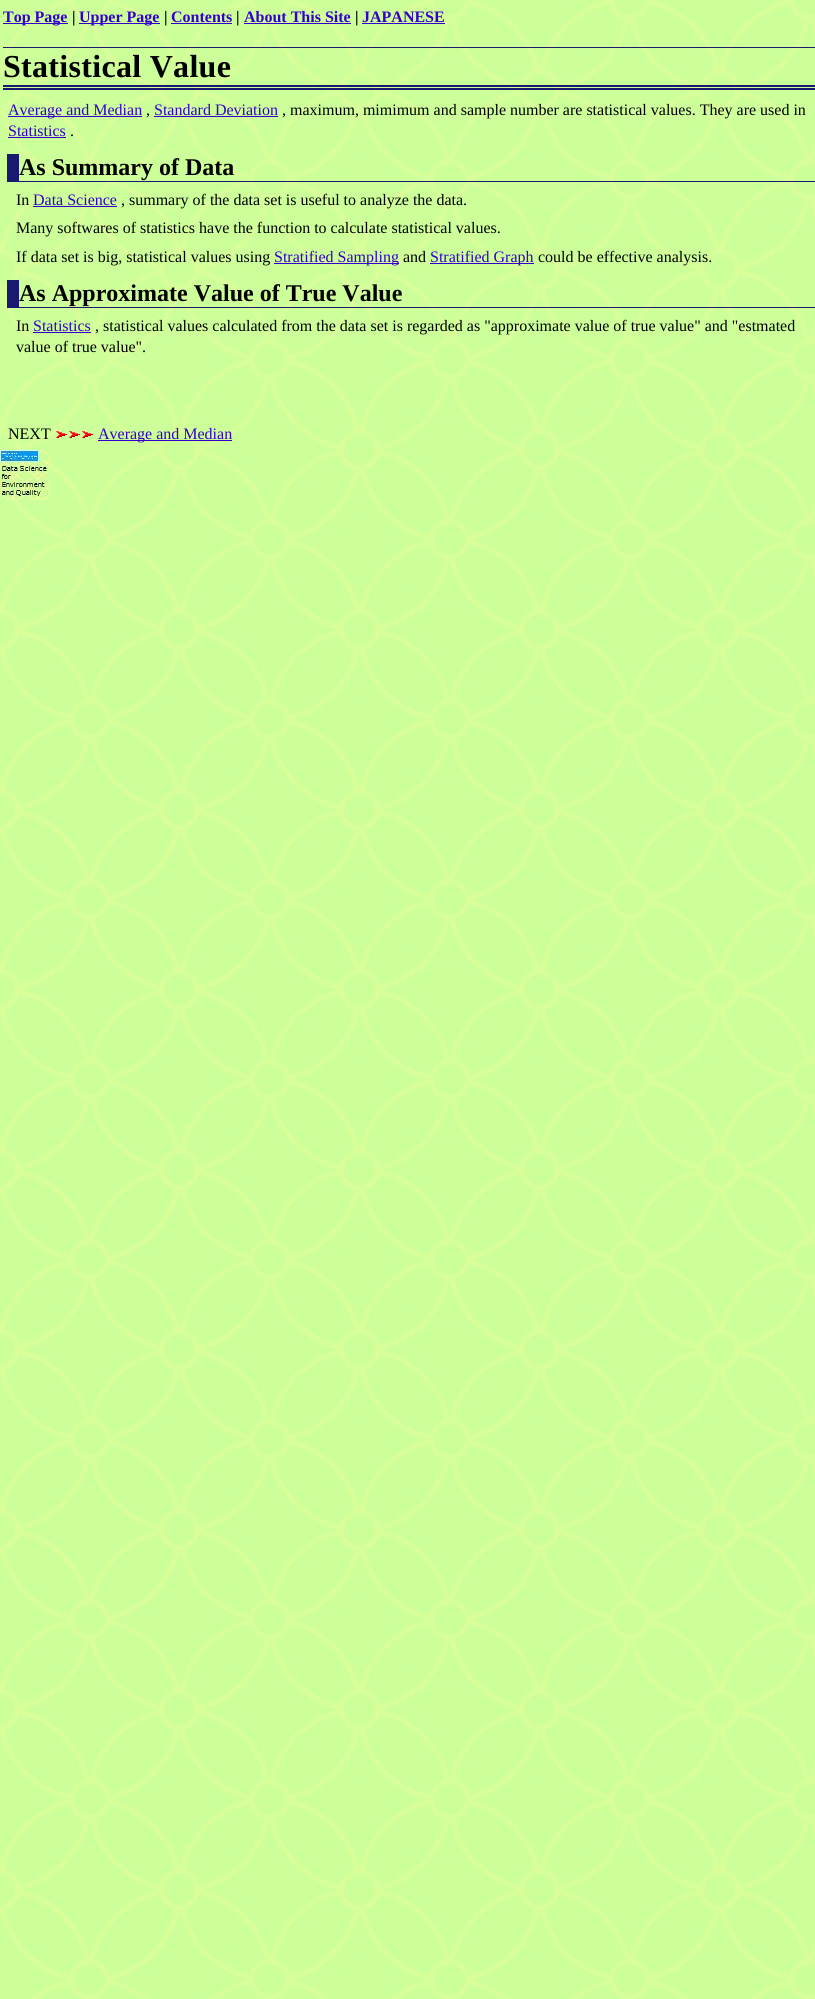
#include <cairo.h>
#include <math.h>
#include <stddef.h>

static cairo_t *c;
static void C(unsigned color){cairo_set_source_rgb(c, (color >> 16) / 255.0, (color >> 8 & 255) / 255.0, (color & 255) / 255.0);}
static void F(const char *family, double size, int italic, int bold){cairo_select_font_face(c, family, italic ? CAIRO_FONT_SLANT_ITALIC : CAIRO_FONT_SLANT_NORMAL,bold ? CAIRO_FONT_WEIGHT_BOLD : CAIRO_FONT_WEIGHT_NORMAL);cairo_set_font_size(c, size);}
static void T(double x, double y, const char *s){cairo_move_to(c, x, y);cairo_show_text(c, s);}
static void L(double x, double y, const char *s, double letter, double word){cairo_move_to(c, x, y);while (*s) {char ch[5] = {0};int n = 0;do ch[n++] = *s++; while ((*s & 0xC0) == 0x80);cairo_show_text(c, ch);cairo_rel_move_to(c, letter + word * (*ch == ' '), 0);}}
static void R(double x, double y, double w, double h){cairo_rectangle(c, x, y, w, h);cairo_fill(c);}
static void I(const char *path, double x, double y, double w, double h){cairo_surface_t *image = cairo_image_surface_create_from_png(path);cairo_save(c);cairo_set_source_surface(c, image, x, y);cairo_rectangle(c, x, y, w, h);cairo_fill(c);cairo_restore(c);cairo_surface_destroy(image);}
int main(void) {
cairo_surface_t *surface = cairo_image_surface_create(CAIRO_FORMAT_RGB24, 815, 1999);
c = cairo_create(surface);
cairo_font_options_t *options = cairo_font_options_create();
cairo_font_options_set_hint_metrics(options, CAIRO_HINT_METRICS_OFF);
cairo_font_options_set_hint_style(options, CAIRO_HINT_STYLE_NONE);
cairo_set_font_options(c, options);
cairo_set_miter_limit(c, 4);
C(0xffffff);
cairo_paint(c);
I("1.png",0,0,815,1999);
C(0x3300cc);
R(3,23,65,1);
F("Liberation Serif",16,0,1);
T(3,22,"Top Page");
C(0x000000);
T(72,22,"|");
C(0x3300cc);
R(79,23,81,1);
T(79,22,"Upper Page");
C(0x000000);
T(164,22,"|");
C(0x3300cc);
T(171,22,"Contents");
R(171,23,61,1);
C(0x000000);
T(236,22,"|");
C(0x3300cc);
T(244,22,"About This Site");
R(244,23,107,1);
C(0x000000);
T(355,22,"|");
C(0x3300cc);
T(362,22,"JAPANESE");
R(362,23,83,1);
C(0x191970);
R(3,47,812,1);
R(3,85,812,2);
R(3,88,812,2);
F("Liberation Serif",32,0,1);
C(0x000000);
L(3,77,"Statistical Value",.3,0);
C(0x3300cc);
R(8,116,134,1);
F("Liberation Serif",16,0,0);
T(8,115,"Average and Median");
C(0x000000);
T(146,115,",");
C(0x3300cc);
T(154,115,"Standard Deviation");
R(154,116,124,1);
C(0x000000);
T(282,115,", maximum, mimimum and sample number are statistical values. They are used in");
C(0x3300cc);
T(8,136,"Statistics");
R(8,137,58,1);
C(0x000000);
T(70,136,".");
C(0x191970);
R(19,181,796,1);
R(7,154,12,28);
F("Liberation Serif",24,0,1);
C(0x000000);
T(19,175,"As Summary of Data");
F("Liberation Serif",16,0,0);
T(16,205,"In");
C(0x3300cc);
T(33,205,"Data Science");
R(33,206,84,1);
C(0x000000);
T(121,205,", summary of the data set is useful to analyze the data.");
T(16,233,"Many softwares of statistics have the function to calculate statistical values.");
T(16,262,"If data set is big, statistical values using");
C(0x3300cc);
R(274,263,125,1);
T(274,262,"Stratified Sampling");
C(0x000000);
T(403,262,"and");
C(0x3300cc);
R(430,263,104,1);
T(430,262,"Stratified Graph");
C(0x000000);
T(538,262,"could be effective analysis.");
C(0x191970);
R(19,307,796,1);
R(7,280,12,28);
F("Liberation Serif",24,0,1);
C(0x000000);
T(19,301,"As Approximate Value of True Value");
F("Liberation Serif",16,0,0);
T(16,331,"In");
C(0x3300cc);
T(33,331,"Statistics");
R(33,332,58,1);
C(0x000000);
T(95,331,", statistical values calculated from the data set is regarded as \"approximate value of true value\" and \"estmated");
T(16,352,"value of true value\".");
T(8,439,"NEXT");
I("2.png",56,431,11,7);
I("3.png",69,431,11,7);
I("3.png",82,431,11,7);
C(0x3300cc);
R(98,440,134,1);
T(98,439,"Average and Median");
I("4.png",0,450,50,50);
cairo_surface_write_to_png(surface, "o.png");
cairo_font_options_destroy(options);
cairo_destroy(c);
cairo_surface_destroy(surface);
return 0;
}
